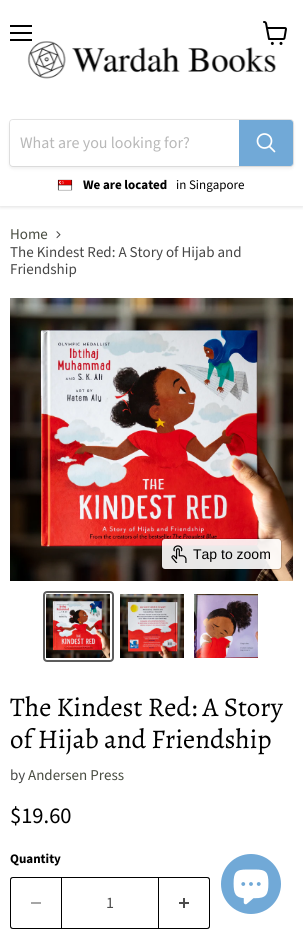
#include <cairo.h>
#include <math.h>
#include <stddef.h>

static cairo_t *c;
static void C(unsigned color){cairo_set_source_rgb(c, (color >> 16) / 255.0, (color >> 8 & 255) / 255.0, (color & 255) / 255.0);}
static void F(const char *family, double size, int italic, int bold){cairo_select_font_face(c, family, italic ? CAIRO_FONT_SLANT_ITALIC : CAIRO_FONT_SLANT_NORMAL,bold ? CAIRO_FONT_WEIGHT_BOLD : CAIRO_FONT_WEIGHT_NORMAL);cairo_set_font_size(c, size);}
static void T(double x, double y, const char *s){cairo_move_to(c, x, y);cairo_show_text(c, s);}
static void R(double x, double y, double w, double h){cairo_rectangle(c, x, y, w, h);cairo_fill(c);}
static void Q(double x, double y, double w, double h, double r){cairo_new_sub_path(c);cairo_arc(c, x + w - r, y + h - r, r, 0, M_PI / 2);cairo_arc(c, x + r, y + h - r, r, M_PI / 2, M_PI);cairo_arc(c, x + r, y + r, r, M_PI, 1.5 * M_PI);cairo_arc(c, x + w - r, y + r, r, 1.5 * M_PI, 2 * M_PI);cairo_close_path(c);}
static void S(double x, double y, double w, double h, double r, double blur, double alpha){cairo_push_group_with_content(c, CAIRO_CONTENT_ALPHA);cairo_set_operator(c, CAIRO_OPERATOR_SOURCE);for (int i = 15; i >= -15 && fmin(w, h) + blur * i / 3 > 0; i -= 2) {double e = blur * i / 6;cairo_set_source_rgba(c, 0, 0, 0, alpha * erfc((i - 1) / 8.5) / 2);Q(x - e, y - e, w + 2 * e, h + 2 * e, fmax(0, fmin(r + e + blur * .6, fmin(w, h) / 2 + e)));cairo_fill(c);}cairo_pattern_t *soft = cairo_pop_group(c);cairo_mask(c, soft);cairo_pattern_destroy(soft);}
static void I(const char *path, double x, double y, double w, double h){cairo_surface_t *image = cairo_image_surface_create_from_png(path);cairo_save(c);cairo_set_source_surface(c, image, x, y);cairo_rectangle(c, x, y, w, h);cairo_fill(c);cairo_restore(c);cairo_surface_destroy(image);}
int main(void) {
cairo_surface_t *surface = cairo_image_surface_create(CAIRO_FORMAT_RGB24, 303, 935);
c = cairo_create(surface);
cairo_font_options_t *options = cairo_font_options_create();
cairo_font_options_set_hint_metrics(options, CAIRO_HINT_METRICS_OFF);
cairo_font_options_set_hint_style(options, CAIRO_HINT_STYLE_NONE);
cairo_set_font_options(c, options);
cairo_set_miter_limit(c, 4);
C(0xffffff);
cairo_paint(c);
cairo_save(c);
cairo_rectangle(c,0,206,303,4);
cairo_clip(c);
C(0x808080);
S(0,1,303,206,0,2,.25);
cairo_restore(c);
C(0x000000);
R(10,25,22,2);
R(10,32,22,2);
R(10,39,22,2);
I("2.png",27,41,249,38);
I("1.png",263,21,24,24);
C(0x808080);
S(9,121,285,48,4,1.5,.11);
Q(9.5,119.5,284,47,3.5);
cairo_set_source_rgba(c,0.502,0.502,0.502,0.2);
cairo_set_line_width(c,1);
cairo_stroke(c);
C(0xffffff);
cairo_new_path(c);
cairo_move_to(c,13,120);
cairo_line_to(c,239,120);
cairo_line_to(c,239,166);
cairo_line_to(c,13,166);
cairo_curve_to(c,11.5,166,10,164.5,10,163);
cairo_line_to(c,10,123);
cairo_curve_to(c,10,121.5,11.5,120,13,120);
cairo_close_path(c);
cairo_fill(c);
F("Source Sans Pro",16,0,0);
C(0xb8b8b8);
T(20,148,"What are you looking for?");
C(0x71a9d7);
cairo_new_path(c);
cairo_move_to(c,239.5,120.5);
cairo_line_to(c,290,120.5);
cairo_curve_to(c,291.5,120.5,292.5,121.5,292.5,123);
cairo_line_to(c,292.5,163);
cairo_curve_to(c,292.5,164.5,291.5,165.5,290,165.5);
cairo_line_to(c,239.5,165.5);
cairo_close_path(c);
cairo_fill_preserve(c);
cairo_stroke(c);
cairo_new_path(c);
cairo_move_to(c,274.5,151.5);
cairo_line_to(c,269.5,146.5);
C(0xffffff);
cairo_set_line_width(c,1.7);
cairo_set_line_cap(c,CAIRO_LINE_CAP_ROUND);
cairo_stroke(c);
cairo_arc(c,264.5,141,7,0,2 * M_PI);
cairo_set_line_cap(c,CAIRO_LINE_CAP_BUTT);
cairo_stroke(c);
I("3.png",57,179,16,12);
F("Source Sans Pro",13,0,1);
C(0x000000);
T(83,189,"We are located");
F("Source Sans Pro",13,0,0);
T(176,189,"in Singapore");
F("Source Sans Pro",15,0,0);
C(0x494d41);
T(10,239,"Home");
I("4.png",56,231,5,8);
C(0x464646);
T(10,257,"The Kindest Red: A Story of Hijab and");
T(10,274,"Friendship");
I("5.png",10,298,283,283);
Q(161.5,538.5,120,31,3.5);
cairo_set_source_rgba(c,0,0,0,0.15);
cairo_set_line_width(c,1);
cairo_stroke(c);
cairo_set_source_rgba(c,1,1,1,0.9);
Q(162,539,119,30,3);
cairo_fill(c);
I("6.png",171,545,16,18);
F("Liberation Sans",14,0,0);
C(0x000000);
T(193,559,"Tap to zoom");
Q(44,592,69,69,3);
C(0x5c5c5c);
cairo_set_line_width(c,2);
cairo_stroke(c);
I("7.png",46,594,64,64);
I("8.png",120,594,64,64);
I("9.png",194,594,64,64);
F("Alegreya",27,0,0);
C(0x000000);
T(10,716,"The Kindest Red: A Story");
T(10,748,"of Hijab and Friendship");
F("Source Sans Pro",15,0,0);
C(0x464646);
T(10,780,"by");
C(0x494d41);
T(28,780,"Andersen Press");
F("Source Sans Pro",22.5,0,0);
C(0x000000);
T(10,823,"$19.60");
F("Source Sans Pro",13,0,1);
T(10,863,"Quantity");
cairo_set_fill_rule(c,CAIRO_FILL_RULE_EVEN_ODD);
cairo_new_path(c);
cairo_move_to(c,13,877);
cairo_line_to(c,61,877);
cairo_line_to(c,61,929);
cairo_line_to(c,13,929);
cairo_curve_to(c,11,929,10,928,10,926);
cairo_line_to(c,10,880);
cairo_curve_to(c,10,878,11,877,13,877);
cairo_close_path(c);
cairo_move_to(c,13,878);
cairo_line_to(c,61,878);
cairo_line_to(c,61,928);
cairo_line_to(c,13,928);
cairo_curve_to(c,12,928,11,927,11,926);
cairo_line_to(c,11,880);
cairo_curve_to(c,11,879,12,878,13,878);
cairo_close_path(c);
cairo_fill(c);
C(0xa6a6a6);
R(31,902,10,2);
cairo_rectangle(c,61.5,877.5,97,51);
C(0x000000);
cairo_set_line_width(c,1);
cairo_stroke(c);
F("Source Sans Pro",16,0,0);
C(0x4d4d4d);
T(106,908,"1");
C(0x000000);
cairo_new_path(c);
cairo_move_to(c,159,877);
cairo_line_to(c,207,877);
cairo_curve_to(c,209,877,210,878,210,880);
cairo_line_to(c,210,926);
cairo_curve_to(c,210,928,209,929,207,929);
cairo_line_to(c,159,929);
cairo_close_path(c);
cairo_move_to(c,159,878);
cairo_line_to(c,207,878);
cairo_curve_to(c,208,878,209,879,209,880);
cairo_line_to(c,209,926);
cairo_curve_to(c,209,927,208,928,207,928);
cairo_line_to(c,159,928);
cairo_close_path(c);
cairo_fill(c);
I("10.png",179,898,10,10);
C(0x71a9d7);
cairo_arc(c,251,884,30,0,2 * M_PI);
cairo_fill(c);
I("11.png",233,869,36,36);
cairo_surface_write_to_png(surface, "o.png");
cairo_font_options_destroy(options);
cairo_destroy(c);
cairo_surface_destroy(surface);
return 0;
}
